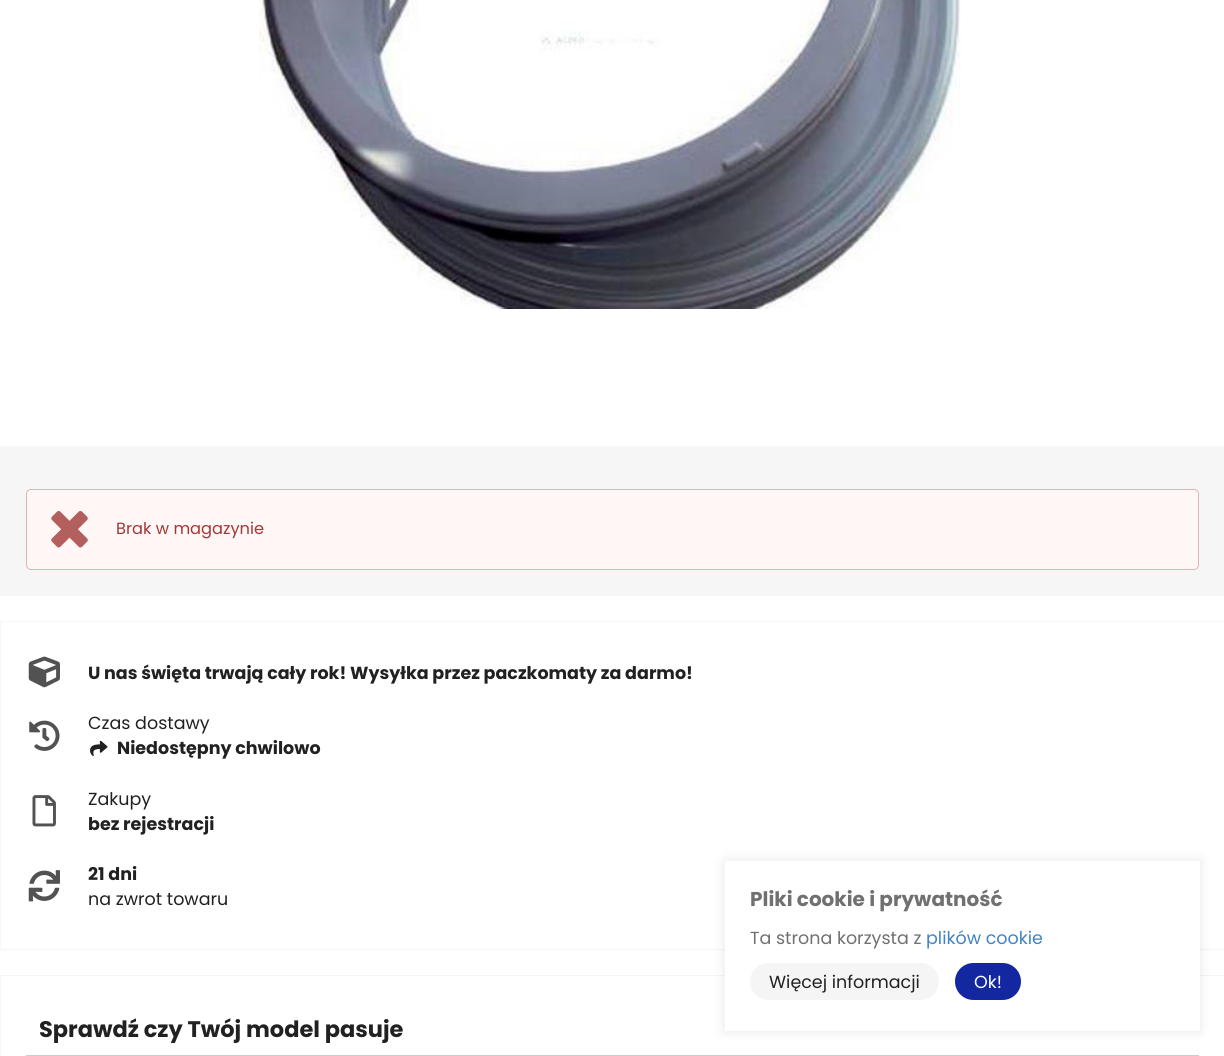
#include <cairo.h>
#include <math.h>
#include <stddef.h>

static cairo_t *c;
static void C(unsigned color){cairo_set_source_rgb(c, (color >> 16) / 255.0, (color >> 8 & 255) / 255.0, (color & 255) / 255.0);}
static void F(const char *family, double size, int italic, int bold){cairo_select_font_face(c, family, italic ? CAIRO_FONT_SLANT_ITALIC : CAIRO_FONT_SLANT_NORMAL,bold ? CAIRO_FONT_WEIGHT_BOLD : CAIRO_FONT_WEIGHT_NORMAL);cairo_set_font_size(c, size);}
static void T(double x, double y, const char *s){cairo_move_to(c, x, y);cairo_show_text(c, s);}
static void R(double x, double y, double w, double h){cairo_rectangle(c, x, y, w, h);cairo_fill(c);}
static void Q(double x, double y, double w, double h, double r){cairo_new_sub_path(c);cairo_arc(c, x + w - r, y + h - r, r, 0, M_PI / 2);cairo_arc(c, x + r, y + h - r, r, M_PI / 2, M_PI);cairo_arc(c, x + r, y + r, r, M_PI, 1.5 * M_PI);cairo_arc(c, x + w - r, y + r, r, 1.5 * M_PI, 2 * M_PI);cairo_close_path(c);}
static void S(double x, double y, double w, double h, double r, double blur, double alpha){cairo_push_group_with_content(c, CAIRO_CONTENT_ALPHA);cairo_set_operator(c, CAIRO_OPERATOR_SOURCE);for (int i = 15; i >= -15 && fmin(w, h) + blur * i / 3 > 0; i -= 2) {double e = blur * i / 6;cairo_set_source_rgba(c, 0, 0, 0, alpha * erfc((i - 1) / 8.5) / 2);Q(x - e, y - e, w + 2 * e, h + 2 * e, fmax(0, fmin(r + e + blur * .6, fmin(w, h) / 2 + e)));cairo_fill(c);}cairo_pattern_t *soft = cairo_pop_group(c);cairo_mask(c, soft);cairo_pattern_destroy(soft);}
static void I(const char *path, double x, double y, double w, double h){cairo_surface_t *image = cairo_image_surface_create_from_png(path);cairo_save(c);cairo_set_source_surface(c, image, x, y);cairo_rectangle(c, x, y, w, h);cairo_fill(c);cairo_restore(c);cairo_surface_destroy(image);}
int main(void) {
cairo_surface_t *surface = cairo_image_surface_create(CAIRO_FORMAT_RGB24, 1224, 1056);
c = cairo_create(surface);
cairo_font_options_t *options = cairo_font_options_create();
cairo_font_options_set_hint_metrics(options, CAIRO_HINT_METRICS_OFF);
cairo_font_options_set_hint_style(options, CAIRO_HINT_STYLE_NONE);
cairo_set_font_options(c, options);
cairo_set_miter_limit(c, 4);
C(0xffffff);
cairo_paint(c);
I("1.png",259,0,702,309);
C(0xf6f6f6);
R(0,446,1224,150);
C(0xfff6f6);
Q(26.5,489.5,1172,80,4.5);
cairo_fill_preserve(c);
C(0xe0b4b4);
cairo_set_line_width(c,1);
cairo_stroke(c);
I("2.png",51,511,37,37);
F("Poppins",16.25,0,0);
C(0x9f3a38);
T(116,534,"Brak w magazynie");
cairo_rectangle(c,.5,621.5,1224,328);
C(0xf6f6f6);
cairo_stroke(c);
I("3.png",28,656,32,32);
F("Poppins",17.5,0,1);
C(0x212121);
T(88,679,"U nas święta trwają cały rok! Wysyłka przez paczkomaty za darmo!");
I("4.png",29,720,31,31);
F("Poppins",17.5,0,0);
T(88,729,"Czas dostawy");
I("5.png",90,740,18,16);
F("Poppins",17.5,0,1);
T(117,754,"Niedostępny chwilowo");
I("6.png",32,795,24,32);
F("Poppins",17.5,0,0);
T(88,805,"Zakupy");
F("Poppins",17.5,0,1);
T(88,830,"bez rejestracji");
I("7.png",28,870,32,32);
T(88,880,"21 dni");
F("Poppins",17.5,0,0);
T(88,905,"na zwrot towaru");
cairo_rectangle(c,.5,975.5,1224,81);
C(0xf6f6f6);
cairo_stroke(c);
C(0xcccccc);
R(26,1055,1173,1);
F("Poppins",22.5,0,1);
C(0x212121);
T(39,1037,"Sprawdź czy Twój model pasuje");
C(0x000000);
S(725,861,475,170,0,6,.1);
C(0xffffff);
R(725,861,475,170);
F("Poppins",20,0,1);
C(0x707070);
T(750,906,"Pliki cookie i prywatność");
F("Poppins",17.5,0,0);
T(750,944,"Ta strona korzysta z");
C(0x4183c4);
T(926,944,"plików cookie");
C(0xf5f5f5);
Q(750,963,189,37,18.5);
cairo_fill(c);
C(0x212121);
T(769,988,"Więcej informacji");
C(0x1327a0);
Q(955,963,66,37,18.5);
cairo_fill(c);
C(0xffffff);
T(974,988,"Ok!");
cairo_surface_write_to_png(surface, "o.png");
cairo_font_options_destroy(options);
cairo_destroy(c);
cairo_surface_destroy(surface);
return 0;
}
